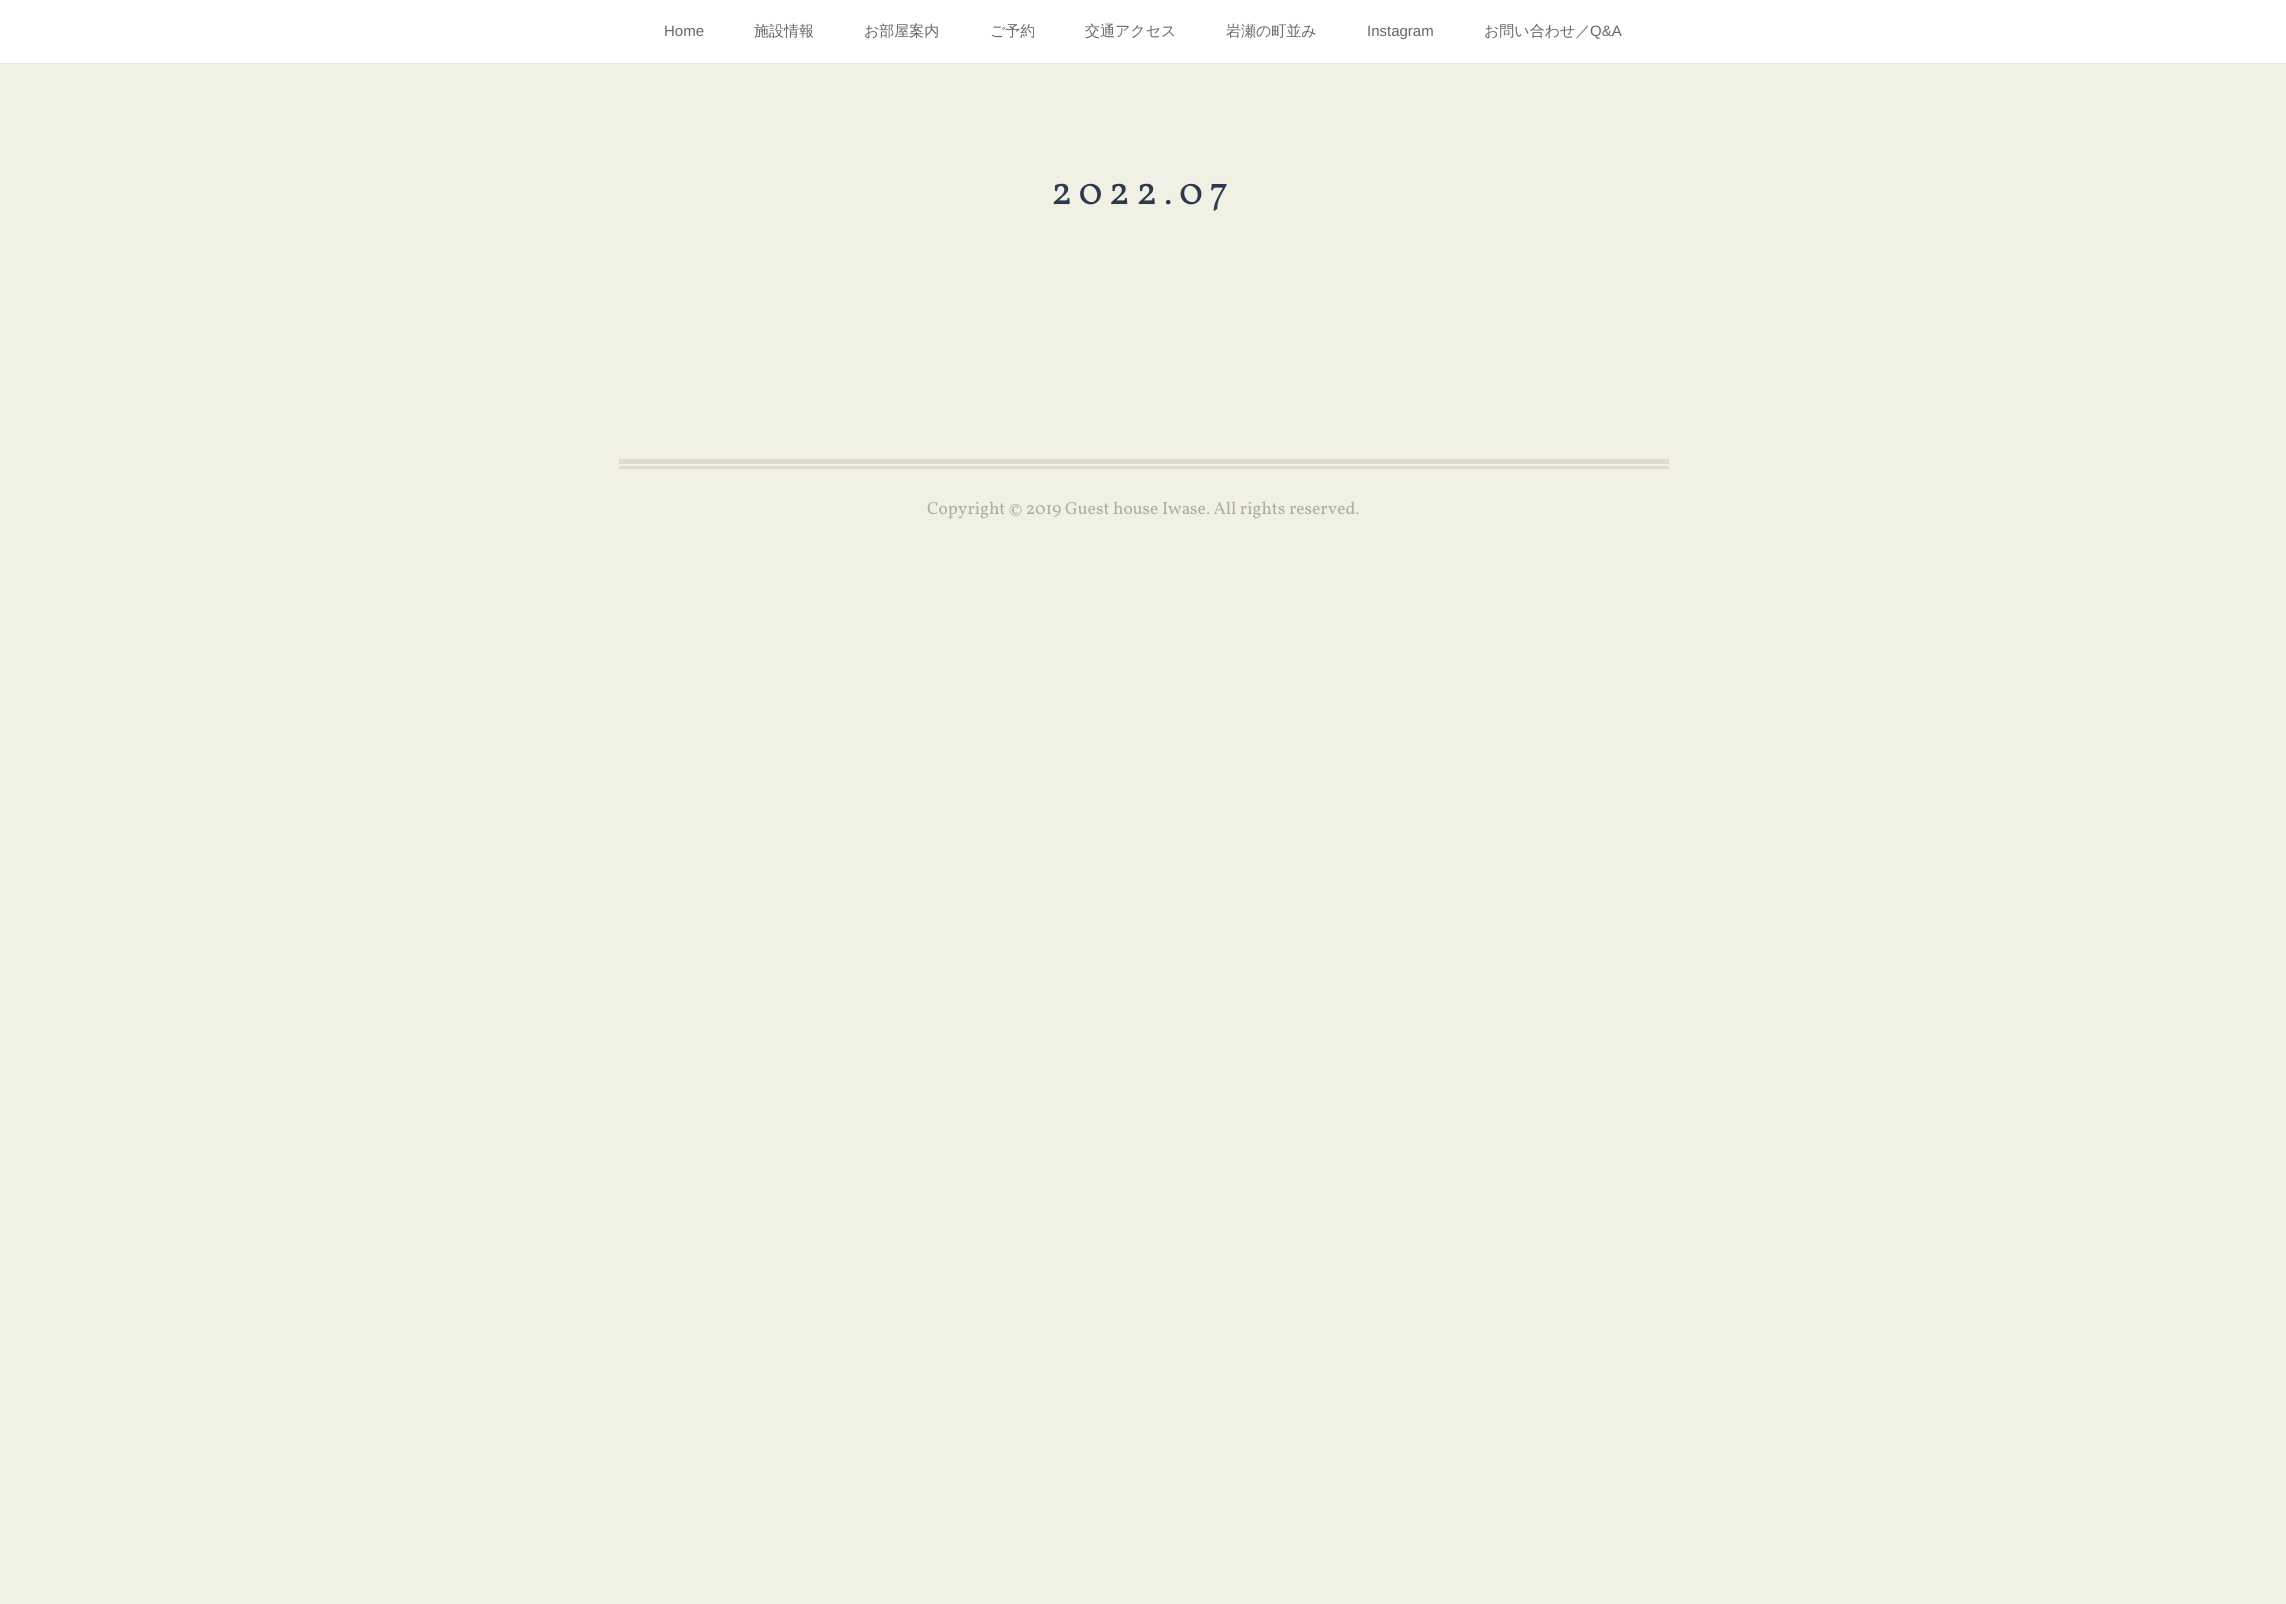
#include <cairo.h>
#include <math.h>
#include <stddef.h>

static cairo_t *c;
static void C(unsigned color){cairo_set_source_rgb(c, (color >> 16) / 255.0, (color >> 8 & 255) / 255.0, (color & 255) / 255.0);}
static void F(const char *family, double size, int italic, int bold){cairo_select_font_face(c, family, italic ? CAIRO_FONT_SLANT_ITALIC : CAIRO_FONT_SLANT_NORMAL,bold ? CAIRO_FONT_WEIGHT_BOLD : CAIRO_FONT_WEIGHT_NORMAL);cairo_set_font_size(c, size);}
static void T(double x, double y, const char *s){cairo_move_to(c, x, y);cairo_show_text(c, s);}
static void L(double x, double y, const char *s, double letter, double word){cairo_move_to(c, x, y);while (*s) {char ch[5] = {0};int n = 0;do ch[n++] = *s++; while ((*s & 0xC0) == 0x80);cairo_show_text(c, ch);cairo_rel_move_to(c, letter + word * (*ch == ' '), 0);}}
static void R(double x, double y, double w, double h){cairo_rectangle(c, x, y, w, h);cairo_fill(c);}
int main(void) {
cairo_surface_t *surface = cairo_image_surface_create(CAIRO_FORMAT_RGB24, 2286, 1604);
c = cairo_create(surface);
cairo_font_options_t *options = cairo_font_options_create();
cairo_font_options_set_hint_metrics(options, CAIRO_HINT_METRICS_OFF);
cairo_font_options_set_hint_style(options, CAIRO_HINT_STYLE_NONE);
cairo_set_font_options(c, options);
cairo_set_miter_limit(c, 4);
C(0xf1f0e5);
cairo_paint(c);
C(0xffffff);
R(0,0,2286,63);
C(0xe6e6e6);
R(0,63,2286,1);
F("Liberation Sans",15,0,0);
C(0x666666);
T(664,36,"Home");
F("WenQuanYi Zen Hei Medium",15,0,0);
T(754,36,"施設情報");
T(864,36,"お部屋案内");
T(990,36,"ご予約");
T(1085,36,"交通アクセス");
T(1226,36,"岩瀬の町並み");
F("Liberation Sans",15,0,0);
T(1367,36,"Instagram");
F("WenQuanYi Zen Hei Medium",15,0,0);
T(1484,36,"お問い合わせ／");
F("Liberation Sans",15,0,0);
T(1590,36,"Q&A");
F("Vollkorn",40,0,0);
C(0x2c394e);
L(1051,204,"2022.07",6,0);
C(0xdeddcd);
R(619,459,1050,5);
R(619,466,1050,3);
F("Vollkorn",17.5,0,0);
C(0xacaba6);
T(927,514,"Copyright © 2019 Guest house Iwase. All rights reserved.");
cairo_surface_write_to_png(surface, "o.png");
cairo_font_options_destroy(options);
cairo_destroy(c);
cairo_surface_destroy(surface);
return 0;
}
